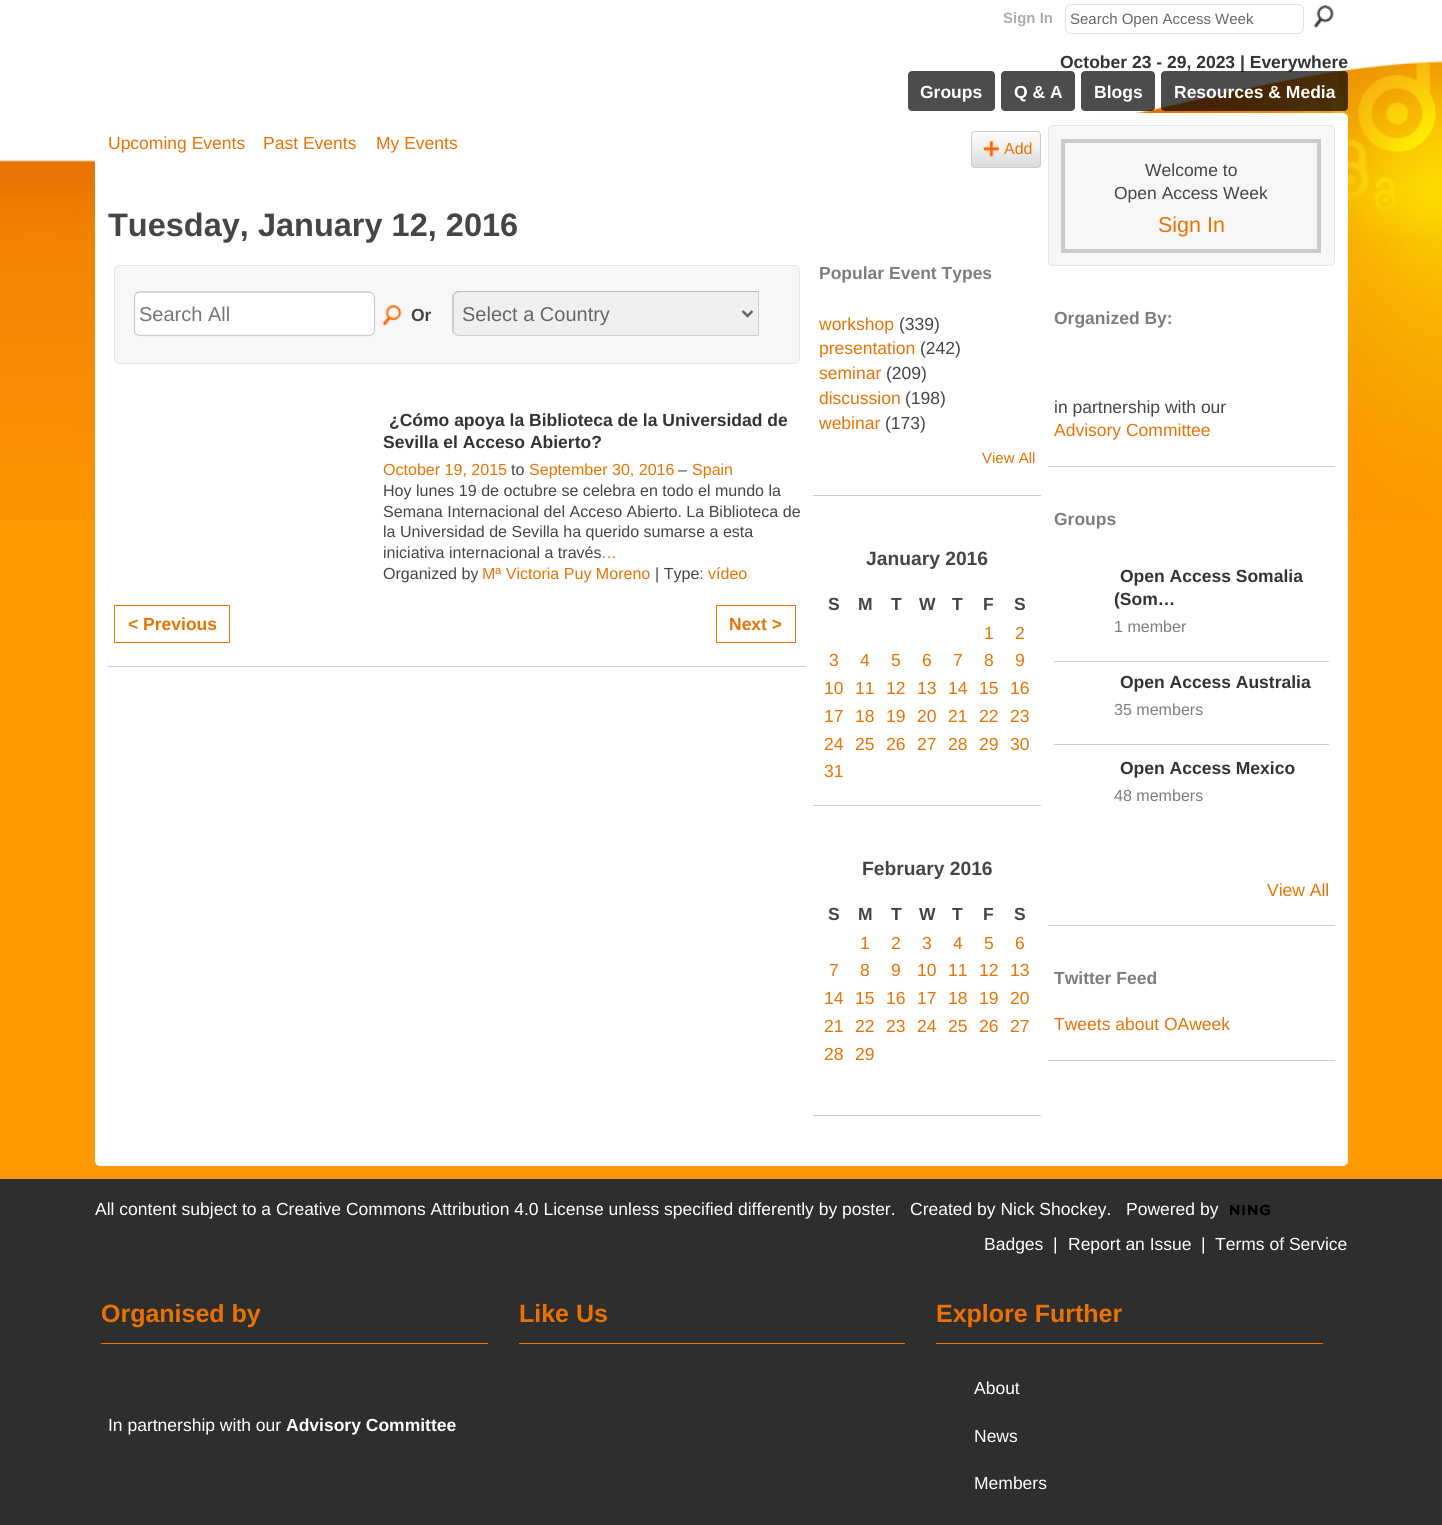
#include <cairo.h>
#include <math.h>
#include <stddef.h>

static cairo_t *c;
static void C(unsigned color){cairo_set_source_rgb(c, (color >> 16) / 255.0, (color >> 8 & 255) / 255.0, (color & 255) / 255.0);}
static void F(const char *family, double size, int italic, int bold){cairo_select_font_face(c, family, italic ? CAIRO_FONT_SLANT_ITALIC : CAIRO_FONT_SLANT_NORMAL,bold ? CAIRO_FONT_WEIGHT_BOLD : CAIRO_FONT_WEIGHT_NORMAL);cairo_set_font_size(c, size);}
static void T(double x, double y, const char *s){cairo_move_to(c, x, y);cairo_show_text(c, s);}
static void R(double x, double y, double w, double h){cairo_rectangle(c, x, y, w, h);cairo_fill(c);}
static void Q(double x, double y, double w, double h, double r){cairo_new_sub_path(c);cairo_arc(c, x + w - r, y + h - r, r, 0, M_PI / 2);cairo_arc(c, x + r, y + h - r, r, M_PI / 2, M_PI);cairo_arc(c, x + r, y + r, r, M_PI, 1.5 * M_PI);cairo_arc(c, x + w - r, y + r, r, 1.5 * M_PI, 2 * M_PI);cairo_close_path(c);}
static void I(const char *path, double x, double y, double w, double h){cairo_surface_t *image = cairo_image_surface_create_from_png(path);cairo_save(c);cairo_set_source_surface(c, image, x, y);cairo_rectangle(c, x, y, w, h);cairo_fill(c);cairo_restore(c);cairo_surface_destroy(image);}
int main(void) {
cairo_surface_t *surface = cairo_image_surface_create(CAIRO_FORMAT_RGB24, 1442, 1525);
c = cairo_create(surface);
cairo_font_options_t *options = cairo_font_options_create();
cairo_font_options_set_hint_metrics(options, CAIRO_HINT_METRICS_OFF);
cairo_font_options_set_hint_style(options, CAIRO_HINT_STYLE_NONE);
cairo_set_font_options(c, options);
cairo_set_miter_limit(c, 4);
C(0xff9900);
cairo_paint(c);
I("1.png",0,0,1442,519);
F("Liberation Sans",15,0,1);
C(0xacacac);
T(1003,23,"Sign In");
Q(1065.5,4.5,238,29,5.5);
C(0xe3e3e3);
cairo_set_line_width(c,1);
cairo_stroke(c);
F("Liberation Sans",15,0,0);
C(0x666666);
T(1070,24,"Search Open Access Week");
I("2.png",1313,5,21,23);
F("Liberation Sans",17.5,0,1);
C(0x333333);
T(1060,68,"October 23 - 29, 2023 | Everywhere");
C(0x4d4d4d);
Q(908,71,87,40,4);
cairo_fill(c);
C(0xffffff);
T(920,98,"Groups");
C(0x4d4d4d);
Q(1001,71,74,40,4);
cairo_fill(c);
C(0xffffff);
T(1014,98,"Q & A");
cairo_set_source_rgba(c,0,0,0,0.7);
Q(1081,71,74,40,4);
cairo_fill(c);
C(0xffffff);
T(1094,98,"Blogs");
cairo_set_source_rgba(c,0,0,0,0.7);
Q(1161,71,187,40,4);
cairo_fill(c);
C(0xffffff);
T(1174,98,"Resources & Media");
Q(95,113,1253,1053,5);
cairo_fill(c);
F("Liberation Sans",17.5,0,0);
C(0xe97202);
T(108,149,"Upcoming Events");
T(263,149,"Past Events");
T(376,149,"My Events");
I("3.png",971,134,70,34);
Q(971.5,131.5,69,36,3.5);
C(0xcbcbcb);
cairo_stroke(c);
I("4.png",983,141,16,16);
F("Liberation Sans",16,0,0);
C(0xe97202);
T(1004,154,"Add");
F("Liberation Sans",32.5,0,1);
C(0x454545);
T(108,236,"Tuesday, January 12, 2016");
C(0xf7f7f7);
Q(114.5,265.5,685,98,5.5);
cairo_fill_preserve(c);
C(0xe5e5e5);
cairo_stroke(c);
C(0xffffff);
Q(134,291,241,45,6);
cairo_fill(c);
cairo_new_path(c);
cairo_move_to(c,136,293.5);
cairo_curve_to(c,137,292.5,138.5,292,140,292);
cairo_line_to(c,369,292);
cairo_curve_to(c,370,292,371.5,292.5,372.5,293.5);
C(0xbbbbbb);
cairo_set_line_width(c,1.2);
cairo_stroke(c);
cairo_new_path(c);
cairo_move_to(c,372.5,293.5);
cairo_curve_to(c,374,294.5,374.5,296,374.5,297.5);
cairo_line_to(c,374.5,330);
cairo_curve_to(c,374.5,331.5,374,333,372.5,334);
cairo_curve_to(c,371.5,335,370,335.5,369,335.5);
cairo_line_to(c,140,335.5);
cairo_curve_to(c,138.5,335.5,137,335,136,334);
cairo_curve_to(c,135,333,134.5,331.5,134.5,330);
cairo_line_to(c,134.5,297.5);
cairo_curve_to(c,134.5,296,135,294.5,136,293.5);
C(0xcccccc);
cairo_stroke(c);
F("Liberation Sans",20,0,0);
C(0x757575);
T(139,321,"Search All");
I("5.png",382,305,20,21);
F("Liberation Sans",17.5,0,1);
C(0x454545);
T(411,321,"Or");
C(0xefefef);
cairo_new_path(c);
cairo_move_to(c,459,291);
cairo_line_to(c,759,291);
cairo_line_to(c,759,336);
cairo_line_to(c,459,336);
cairo_curve_to(c,455.5,336,453,333.5,453,330);
cairo_line_to(c,453,297);
cairo_curve_to(c,453,293.5,455.5,291,459,291);
cairo_close_path(c);
cairo_fill(c);
C(0xbbbbbb);
cairo_new_path(c);
cairo_move_to(c,459,292);
cairo_curve_to(c,457,292,456,293,455,294);
cairo_line_to(c,454,293);
cairo_line_to(c,457,291);
cairo_line_to(c,759,291);
cairo_line_to(c,758,292);
cairo_close_path(c);
cairo_fill(c);
C(0xcccccc);
cairo_new_path(c);
cairo_move_to(c,759,291);
cairo_line_to(c,759,336);
cairo_line_to(c,758,335);
cairo_line_to(c,758,292);
cairo_close_path(c);
cairo_fill(c);
cairo_new_path(c);
cairo_move_to(c,758,336);
cairo_line_to(c,458,336);
cairo_line_to(c,454,334);
cairo_line_to(c,455,333);
cairo_curve_to(c,456,334,457,335,459,335);
cairo_line_to(c,758,335);
cairo_close_path(c);
cairo_fill(c);
cairo_new_path(c);
cairo_move_to(c,452,295);
cairo_line_to(c,454,293);
cairo_line_to(c,455,294);
cairo_curve_to(c,454,295,454,297,454,298);
cairo_line_to(c,454,330);
cairo_curve_to(c,454,331,454,333,455,333);
cairo_line_to(c,454,334);
cairo_line_to(c,452,332);
cairo_close_path(c);
cairo_fill(c);
cairo_new_path(c);
cairo_move_to(c,742.5,311);
cairo_line_to(c,747.5,316);
cairo_line_to(c,752.5,311);
C(0x666666);
cairo_set_line_width(c,2.5);
cairo_stroke(c);
F("Liberation Sans",20,0,0);
T(462,321,"Select a Country");
C(0xcccccc);
R(108,666,698,1);
F("Liberation Sans",17.5,0,1);
C(0x333333);
T(389,426,"¿Cómo apoya la Biblioteca de la Universidad de");
T(383,448,"Sevilla el Acceso Abierto?");
F("Liberation Sans",16.05,0,0);
C(0xe97202);
T(383,475,"October 19, 2015");
C(0x454545);
T(511,475,"to");
C(0xe97202);
T(529,475,"September 30, 2016");
C(0x454545);
T(678,475,"–");
C(0xe97202);
T(692,475,"Spain");
C(0x454545);
T(383,496,"Hoy lunes 19 de octubre se celebra en todo el mundo la");
T(383,517,"Semana Internacional del Acceso Abierto. La Biblioteca de");
T(383,537,"la Universidad de Sevilla ha querido sumarse a esta");
T(383,558,"iniciativa internacional a través");
C(0xe97202);
T(601,558,"…");
C(0x454545);
T(383,579,"Organized by");
C(0xe97202);
T(482,579,"Mª Victoria Puy Moreno");
C(0x454545);
T(655,579,"| Type:");
C(0xe97202);
T(708,579,"vídeo");
cairo_rectangle(c,114.5,605.5,115,37);
cairo_set_line_width(c,1);
cairo_stroke(c);
F("Liberation Sans",17.5,0,1);
T(128,630,"< Previous");
cairo_rectangle(c,716.5,605.5,79,37);
cairo_stroke(c);
T(729,630,"Next >");
C(0xcccccc);
R(813,495,228,1);
C(0x7d7d7d);
T(819,279,"Popular Event Types");
F("Liberation Sans",17.5,0,0);
C(0xe97202);
T(819,330,"workshop");
C(0x454545);
T(899,330,"(339)");
C(0xe97202);
T(819,354,"presentation");
C(0x454545);
T(920,354,"(242)");
C(0xe97202);
T(819,379,"seminar");
C(0x454545);
T(886,379,"(209)");
C(0xe97202);
T(819,404,"discussion");
C(0x454545);
T(905,404,"(198)");
C(0xe97202);
T(819,429,"webinar");
C(0x454545);
T(885,429,"(173)");
F("Liberation Sans",15,0,0);
C(0xe97202);
T(982,463,"View All");
C(0xcccccc);
R(813,805,228,1);
F("Liberation Sans",19.25,0,1);
C(0x454545);
T(866,565,"January 2016");
F("Liberation Sans",17.5,0,1);
T(828,610,"S");
T(858,610,"M");
T(891,610,"T");
T(919,610,"W");
T(952,610,"T");
T(983,610,"F");
T(1014,610,"S");
F("Liberation Sans",17.5,0,0);
C(0xe97202);
T(984,639,"1");
T(1015,639,"2");
T(829,666,"3");
T(860,666,"4");
T(891,666,"5");
T(922,666,"6");
T(953,666,"7");
T(984,666,"8");
T(1015,666,"9");
T(824,694,"10");
T(855,694,"11");
T(886,694,"12");
T(917,694,"13");
T(948,694,"14");
T(979,694,"15");
T(1010,694,"16");
T(824,722,"17");
T(855,722,"18");
T(886,722,"19");
T(917,722,"20");
T(948,722,"21");
T(979,722,"22");
T(1010,722,"23");
T(824,750,"24");
T(855,750,"25");
T(886,750,"26");
T(917,750,"27");
T(948,750,"28");
T(979,750,"29");
T(1010,750,"30");
T(824,777,"31");
C(0xcccccc);
R(813,1115,228,1);
F("Liberation Sans",19.25,0,1);
C(0x454545);
T(862,875,"February 2016");
F("Liberation Sans",17.5,0,1);
T(828,920,"S");
T(858,920,"M");
T(891,920,"T");
T(919,920,"W");
T(952,920,"T");
T(983,920,"F");
T(1014,920,"S");
F("Liberation Sans",17.5,0,0);
C(0xe97202);
T(860,949,"1");
T(891,949,"2");
T(922,949,"3");
T(953,949,"4");
T(984,949,"5");
T(1015,949,"6");
T(829,976,"7");
T(860,976,"8");
T(891,976,"9");
T(917,976,"10");
T(948,976,"11");
T(979,976,"12");
T(1010,976,"13");
T(824,1004,"14");
T(855,1004,"15");
T(886,1004,"16");
T(917,1004,"17");
T(948,1004,"18");
T(979,1004,"19");
T(1010,1004,"20");
T(824,1032,"21");
T(855,1032,"22");
T(886,1032,"23");
T(917,1032,"24");
T(948,1032,"25");
T(979,1032,"26");
T(1010,1032,"27");
T(824,1060,"28");
T(855,1060,"29");
C(0xf7f7f7);
Q(1048.5,125.5,286,140,4.5);
cairo_fill_preserve(c);
C(0xe5e5e5);
cairo_stroke(c);
cairo_rectangle(c,1063,141,256,110);
C(0xcbcbcb);
cairo_set_line_width(c,4);
cairo_stroke(c);
C(0x454545);
T(1145,176,"Welcome to");
T(1114,199,"Open Access Week");
F("Liberation Sans",21.5,0,0);
C(0xe97202);
T(1158,232,"Sign In");
C(0xcccccc);
R(1048,466,287,1);
F("Liberation Sans",17.5,0,1);
C(0x7d7d7d);
T(1054,324,"Organized By:");
F("Liberation Sans",17.5,0,0);
C(0x454545);
T(1054,413,"in partnership with our");
C(0xe97202);
T(1054,436,"Advisory Committee");
C(0xcccccc);
R(1048,925,287,1);
F("Liberation Sans",17.5,0,1);
C(0x7d7d7d);
T(1054,525,"Groups");
C(0xcbcbcb);
R(1054,661,275,1);
C(0x333333);
T(1120,582,"Open Access Somalia");
T(1114,605,"(Som…");
F("Liberation Sans",16.05,0,0);
C(0x7d7d7d);
T(1114,632,"1 member");
C(0xcbcbcb);
R(1054,744,275,1);
F("Liberation Sans",17.5,0,1);
C(0x333333);
T(1120,688,"Open Access Australia");
F("Liberation Sans",16.05,0,0);
C(0x7d7d7d);
T(1114,715,"35 members");
F("Liberation Sans",17.5,0,1);
C(0x333333);
T(1120,774,"Open Access Mexico");
F("Liberation Sans",16.05,0,0);
C(0x7d7d7d);
T(1114,801,"48 members");
F("Liberation Sans",17.5,0,0);
C(0xe97202);
T(1267,896,"View All");
C(0xcccccc);
R(1048,1060,287,1);
F("Liberation Sans",17.5,0,1);
C(0x7d7d7d);
T(1054,984,"Twitter Feed");
F("Liberation Sans",17.5,0,0);
C(0xe97202);
T(1054,1030,"Tweets about OAweek");
C(0x2e2e2e);
R(0,1179,1442,346);
C(0xffffff);
T(95,1215,"All content subject to a Creative Commons Attribution 4.0 License unless specified differently by poster.");
T(910,1215,"Created by Nick Shockey.");
T(1126,1215,"Powered by");
I("6.png",1230,1204,40,12);
T(984,1250,"Badges");
T(1053,1250,"|");
T(1068,1250,"Report an Issue");
T(1201,1250,"|");
T(1215,1250,"Terms of Service");
C(0xe97202);
R(101,1343,387,1);
F("Liberation Sans",25,0,1);
T(101,1322,"Organised by");
F("Liberation Sans",17.5,0,0);
C(0xffffff);
T(108,1431,"In partnership with our");
F("Liberation Sans",17.5,0,1);
T(286,1431,"Advisory Committee");
C(0xe97202);
R(519,1343,386,1);
F("Liberation Sans",25,0,1);
T(519,1322,"Like Us");
R(936,1343,387,1);
T(936,1322,"Explore Further");
F("Liberation Sans",17.5,0,0);
C(0xffffff);
T(974,1394,"About");
T(974,1442,"News");
T(974,1489,"Members");
cairo_surface_write_to_png(surface, "o.png");
cairo_font_options_destroy(options);
cairo_destroy(c);
cairo_surface_destroy(surface);
return 0;
}
